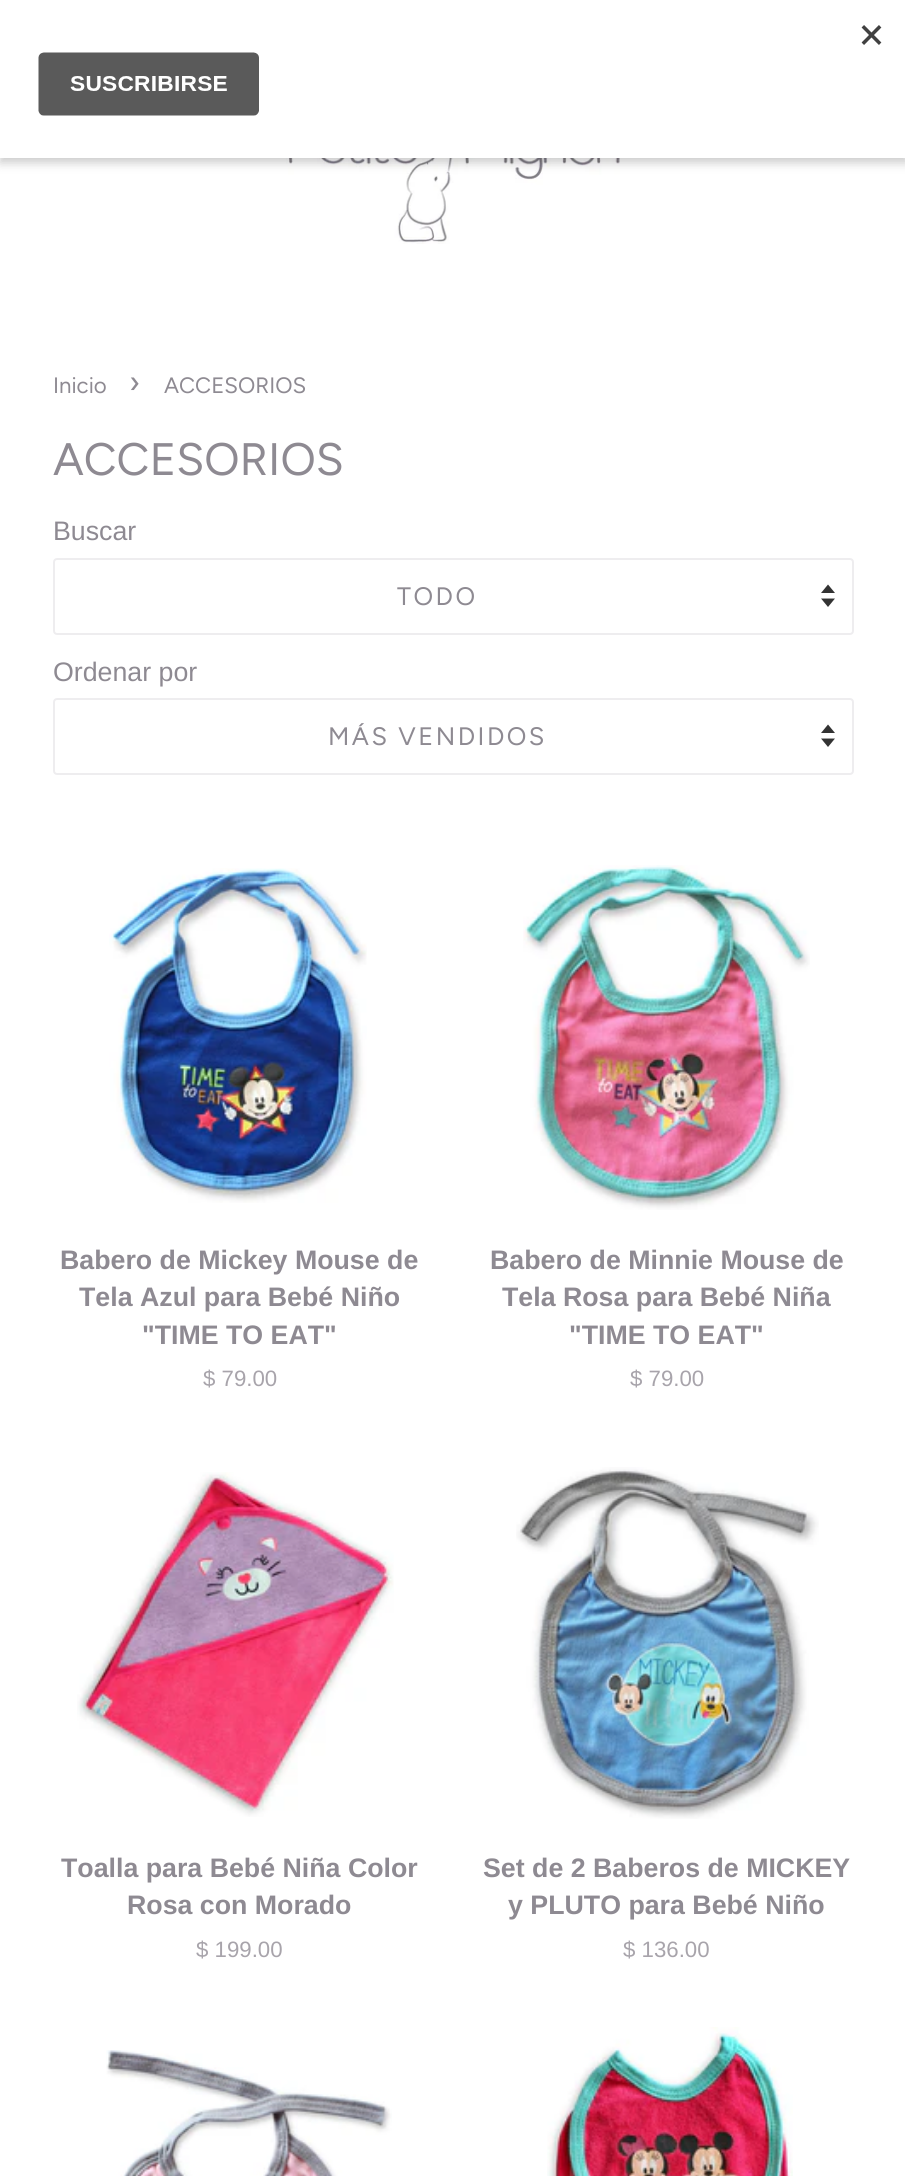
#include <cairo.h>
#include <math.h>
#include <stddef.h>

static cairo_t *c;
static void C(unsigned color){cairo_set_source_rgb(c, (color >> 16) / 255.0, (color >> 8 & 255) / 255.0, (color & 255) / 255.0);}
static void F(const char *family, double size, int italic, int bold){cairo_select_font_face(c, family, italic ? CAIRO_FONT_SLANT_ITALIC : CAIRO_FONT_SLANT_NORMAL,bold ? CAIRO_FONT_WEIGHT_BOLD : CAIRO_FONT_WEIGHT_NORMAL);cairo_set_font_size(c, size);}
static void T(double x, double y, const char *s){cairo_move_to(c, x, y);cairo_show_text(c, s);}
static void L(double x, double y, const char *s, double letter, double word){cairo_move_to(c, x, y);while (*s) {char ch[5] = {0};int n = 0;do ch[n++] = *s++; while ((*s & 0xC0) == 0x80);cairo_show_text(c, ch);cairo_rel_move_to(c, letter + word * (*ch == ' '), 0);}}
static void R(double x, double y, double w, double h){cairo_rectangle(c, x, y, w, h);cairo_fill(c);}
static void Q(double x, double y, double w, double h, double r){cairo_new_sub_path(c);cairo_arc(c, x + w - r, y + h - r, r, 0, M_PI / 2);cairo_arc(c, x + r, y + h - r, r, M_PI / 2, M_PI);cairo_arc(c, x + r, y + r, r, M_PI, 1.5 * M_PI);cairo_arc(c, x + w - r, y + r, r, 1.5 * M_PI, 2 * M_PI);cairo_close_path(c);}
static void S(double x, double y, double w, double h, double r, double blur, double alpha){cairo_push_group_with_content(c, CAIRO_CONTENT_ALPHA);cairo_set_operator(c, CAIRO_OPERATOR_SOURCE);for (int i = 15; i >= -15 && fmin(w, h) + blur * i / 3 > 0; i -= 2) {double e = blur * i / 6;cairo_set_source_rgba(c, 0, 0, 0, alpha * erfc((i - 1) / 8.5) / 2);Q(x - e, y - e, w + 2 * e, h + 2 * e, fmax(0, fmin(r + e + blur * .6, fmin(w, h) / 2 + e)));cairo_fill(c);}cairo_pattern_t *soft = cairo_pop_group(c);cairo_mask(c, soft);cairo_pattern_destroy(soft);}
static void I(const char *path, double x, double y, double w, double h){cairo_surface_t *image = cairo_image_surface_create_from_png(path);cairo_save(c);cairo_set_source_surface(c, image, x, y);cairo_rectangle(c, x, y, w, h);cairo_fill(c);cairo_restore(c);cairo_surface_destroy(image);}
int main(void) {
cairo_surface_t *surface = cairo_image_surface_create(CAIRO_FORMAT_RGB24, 905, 2176);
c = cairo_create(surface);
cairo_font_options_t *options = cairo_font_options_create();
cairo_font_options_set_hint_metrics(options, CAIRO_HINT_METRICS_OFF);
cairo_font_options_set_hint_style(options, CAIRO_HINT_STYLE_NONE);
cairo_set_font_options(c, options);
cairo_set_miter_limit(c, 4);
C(0xffffff);
cairo_paint(c);
I("2.png",286,158,334,86);
C(0x000000);
S(0,5,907,158,0,5,.2);
C(0xffffff);
R(0,0,905,158);
I("1.png",38,25,844,91);
F("Figtree",22.25,0,0);
C(0x8e8a92);
T(53,393,"Inicio");
F("Figtree",31,0,0);
T(129,393,"›");
F("Figtree",22.25,0,0);
T(164,393,"ACCESORIOS");
F("Figtree",45.5,0,0);
T(53,475,"ACCESORIOS");
F("Liberation Sans",26.75,0,0);
T(53,540,"Buscar");
C(0x333333);
cairo_new_path(c);
cairo_move_to(c,821,598.5);
cairo_line_to(c,828,607);
cairo_line_to(c,835,598.5);
cairo_close_path(c);
cairo_move_to(c,828,584.5);
cairo_line_to(c,821,593);
cairo_line_to(c,835,593);
cairo_close_path(c);
cairo_fill(c);
Q(54,559,799,75,3);
C(0xeeedef);
cairo_stroke(c);
F("Figtree",25.25,0,0);
C(0x8e8a92);
L(397,605,"TODO",2.5,0);
F("Liberation Sans",26.75,0,0);
T(53,681,"Ordenar por");
C(0x333333);
cairo_new_path(c);
cairo_move_to(c,821,738.5);
cairo_line_to(c,828,747);
cairo_line_to(c,835,738.5);
cairo_close_path(c);
cairo_move_to(c,828,724.5);
cairo_line_to(c,821,733);
cairo_line_to(c,835,733);
cairo_close_path(c);
cairo_fill(c);
Q(54,699,799,75,3);
C(0xeeedef);
cairo_stroke(c);
F("Figtree",25.25,0,0);
C(0x8e8a92);
L(328,745,"MÁS VENDIDOS",2.5,0);
I("3.png",109,868,258,335);
F("Liberation Sans",26.75,0,1);
T(60,1269,"Babero de Mickey Mouse de");
T(79,1306,"Tela Azul para Bebé Niño");
T(142,1344,"\"TIME TO EAT\"");
F("Liberation Sans",22.25,0,0);
C(0xa8a4ab);
T(203,1386,"$ 79.00");
I("4.png",523,865,287,345);
F("Liberation Sans",26.75,0,1);
C(0x8e8a92);
T(490,1269,"Babero de Minnie Mouse de");
T(502,1306,"Tela Rosa para Bebé Niña");
T(569,1344,"\"TIME TO EAT\"");
F("Liberation Sans",22.25,0,0);
C(0xa8a4ab);
T(630,1386,"$ 79.00");
I("5.png",77,1472,317,345);
F("Liberation Sans",26.75,0,1);
C(0x8e8a92);
T(61,1877,"Toalla para Bebé Niña Color");
T(127,1914,"Rosa con Morado");
F("Liberation Sans",22.25,0,0);
C(0xa8a4ab);
T(196,1957,"$ 199.00");
I("6.png",516,1467,303,352);
F("Liberation Sans",26.75,0,1);
C(0x8e8a92);
T(483,1877,"Set de 2 Baberos de MICKEY");
T(508,1914,"y PLUTO para Bebé Niño");
F("Liberation Sans",22.25,0,0);
C(0xa8a4ab);
T(623,1957,"$ 136.00");
I("7.png",106,2050,286,126);
I("8.png",547,2027,246,149);
cairo_surface_write_to_png(surface, "o.png");
cairo_font_options_destroy(options);
cairo_destroy(c);
cairo_surface_destroy(surface);
return 0;
}
